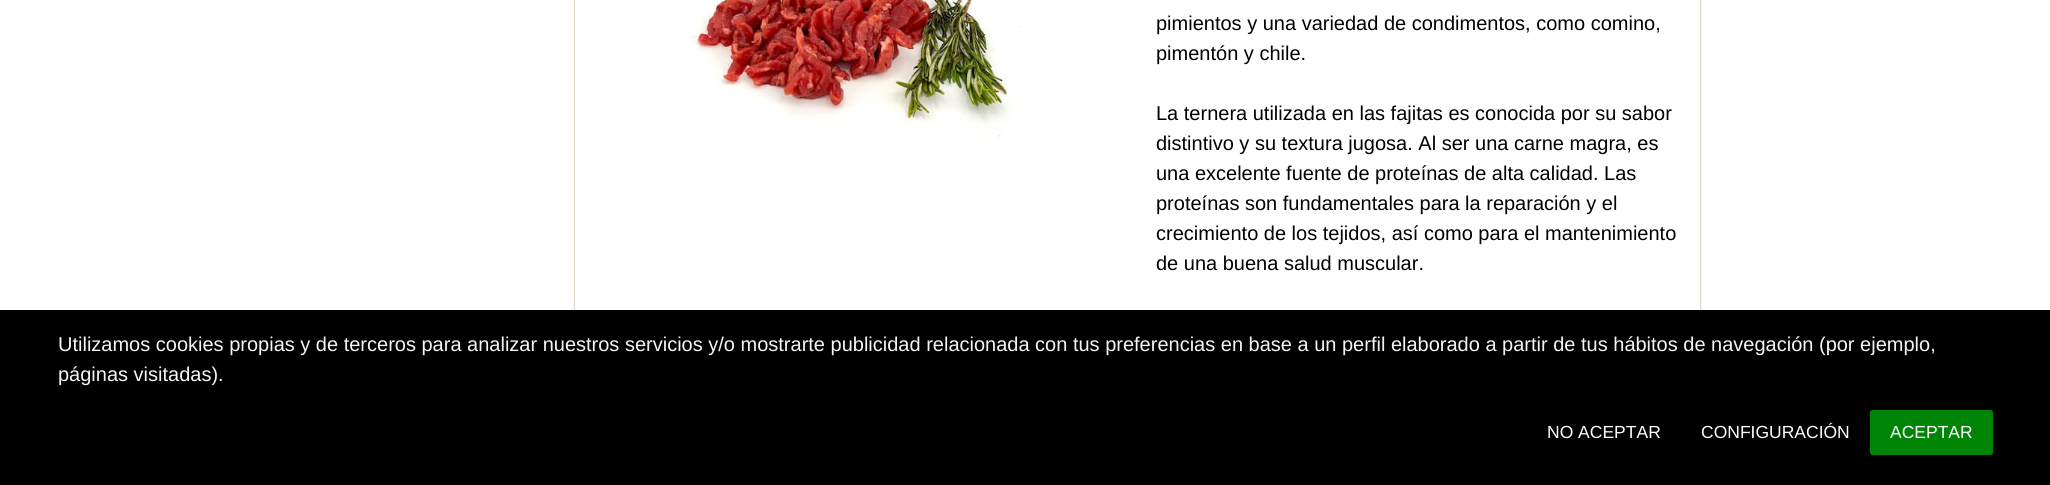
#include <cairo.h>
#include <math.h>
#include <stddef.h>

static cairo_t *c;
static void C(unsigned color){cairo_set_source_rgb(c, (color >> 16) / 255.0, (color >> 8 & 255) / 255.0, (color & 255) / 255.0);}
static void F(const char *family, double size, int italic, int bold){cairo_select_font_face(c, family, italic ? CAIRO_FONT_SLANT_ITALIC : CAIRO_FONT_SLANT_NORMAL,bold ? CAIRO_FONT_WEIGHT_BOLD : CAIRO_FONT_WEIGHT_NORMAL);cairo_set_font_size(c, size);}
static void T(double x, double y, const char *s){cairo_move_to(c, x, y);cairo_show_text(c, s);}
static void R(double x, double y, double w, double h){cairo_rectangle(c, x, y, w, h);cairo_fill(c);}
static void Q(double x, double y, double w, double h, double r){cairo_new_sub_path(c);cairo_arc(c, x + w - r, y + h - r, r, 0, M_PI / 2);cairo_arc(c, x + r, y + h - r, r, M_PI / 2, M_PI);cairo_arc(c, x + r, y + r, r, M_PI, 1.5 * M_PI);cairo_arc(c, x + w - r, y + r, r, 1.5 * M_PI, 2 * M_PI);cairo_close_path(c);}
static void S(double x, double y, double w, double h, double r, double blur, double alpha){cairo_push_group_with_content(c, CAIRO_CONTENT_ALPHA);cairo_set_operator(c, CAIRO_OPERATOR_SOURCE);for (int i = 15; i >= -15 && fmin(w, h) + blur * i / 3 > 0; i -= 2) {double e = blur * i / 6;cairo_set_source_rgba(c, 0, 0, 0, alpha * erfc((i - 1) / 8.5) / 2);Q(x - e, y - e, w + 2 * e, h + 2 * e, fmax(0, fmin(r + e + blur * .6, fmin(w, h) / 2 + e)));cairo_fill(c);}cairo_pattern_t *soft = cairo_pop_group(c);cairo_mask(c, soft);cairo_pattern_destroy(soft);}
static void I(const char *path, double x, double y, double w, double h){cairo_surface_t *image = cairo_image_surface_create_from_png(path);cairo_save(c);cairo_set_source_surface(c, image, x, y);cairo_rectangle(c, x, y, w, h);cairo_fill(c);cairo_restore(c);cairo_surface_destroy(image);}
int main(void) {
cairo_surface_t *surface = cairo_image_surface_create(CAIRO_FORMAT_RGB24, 2050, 485);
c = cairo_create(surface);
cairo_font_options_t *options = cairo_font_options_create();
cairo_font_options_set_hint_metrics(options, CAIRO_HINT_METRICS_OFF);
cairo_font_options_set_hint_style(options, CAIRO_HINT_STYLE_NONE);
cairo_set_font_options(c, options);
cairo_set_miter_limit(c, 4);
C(0xffffff);
cairo_paint(c);
cairo_save(c);
cairo_set_fill_rule(c,CAIRO_FILL_RULE_EVEN_ODD);
cairo_new_path(c);
cairo_move_to(c,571,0);
cairo_line_to(c,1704,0);
cairo_line_to(c,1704,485);
cairo_line_to(c,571,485);
cairo_close_path(c);
cairo_move_to(c,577.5,-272);
cairo_line_to(c,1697.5,-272);
cairo_curve_to(c,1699,-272,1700,-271,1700,-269.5);
cairo_line_to(c,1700,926.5);
cairo_curve_to(c,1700,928,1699,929,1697.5,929);
cairo_line_to(c,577.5,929);
cairo_curve_to(c,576,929,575,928,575,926.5);
cairo_line_to(c,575,-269.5);
cairo_curve_to(c,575,-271,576,-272,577.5,-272);
cairo_close_path(c);
cairo_clip(c);
C(0x75511b);
S(575,-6,1125,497,2.5,1,.7);
cairo_restore(c);
I("1.png",691,0,331,137);
F("Liberation Sans",20,0,0);
C(0x000000);
T(1156,30,"pimientos y una variedad de condimentos, como comino,");
T(1156,60,"pimentón y chile.");
T(1156,120,"La ternera utilizada en las fajitas es conocida por su sabor");
T(1156,150,"distintivo y su textura jugosa. Al ser una carne magra, es");
T(1156,180,"una excelente fuente de proteínas de alta calidad. Las");
T(1156,210,"proteínas son fundamentales para la reparación y el");
T(1156,240,"crecimiento de los tejidos, así como para el mantenimiento");
T(1156,270,"de una buena salud muscular.");
R(0,310,2050,175);
C(0xf5f5f5);
T(58,351,"Utilizamos cookies propias y de terceros para analizar nuestros servicios y/o mostrarte publicidad relacionada con tus preferencias en base a un perfil elaborado a partir de tus hábitos de navegación (por ejemplo,");
T(58,381,"páginas visitadas).");
F("Liberation Sans",17.5,0,0);
C(0xffffff);
T(1547,438,"NO ACEPTAR");
T(1701,438,"CONFIGURACIÓN");
C(0x008405);
Q(1870,410,123,45,2.5);
cairo_fill(c);
C(0xffffff);
T(1890,438,"ACEPTAR");
cairo_surface_write_to_png(surface, "o.png");
cairo_font_options_destroy(options);
cairo_destroy(c);
cairo_surface_destroy(surface);
return 0;
}
